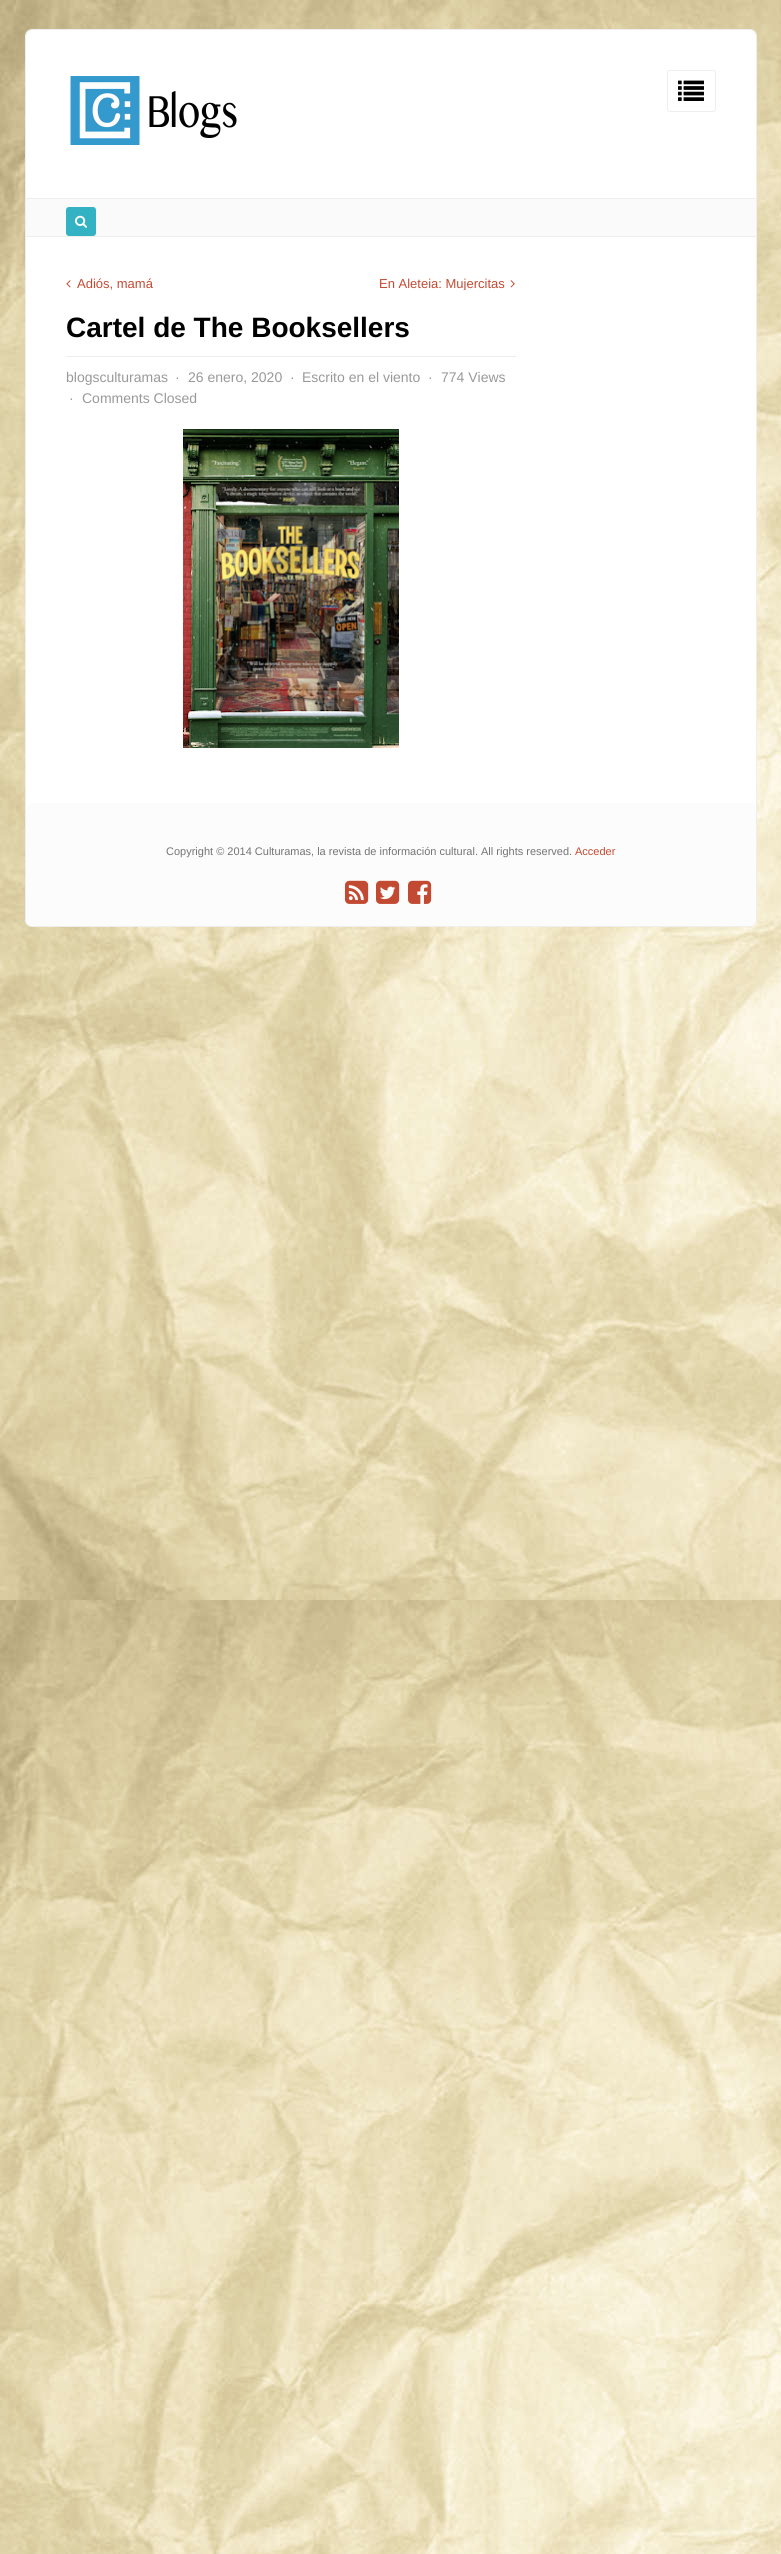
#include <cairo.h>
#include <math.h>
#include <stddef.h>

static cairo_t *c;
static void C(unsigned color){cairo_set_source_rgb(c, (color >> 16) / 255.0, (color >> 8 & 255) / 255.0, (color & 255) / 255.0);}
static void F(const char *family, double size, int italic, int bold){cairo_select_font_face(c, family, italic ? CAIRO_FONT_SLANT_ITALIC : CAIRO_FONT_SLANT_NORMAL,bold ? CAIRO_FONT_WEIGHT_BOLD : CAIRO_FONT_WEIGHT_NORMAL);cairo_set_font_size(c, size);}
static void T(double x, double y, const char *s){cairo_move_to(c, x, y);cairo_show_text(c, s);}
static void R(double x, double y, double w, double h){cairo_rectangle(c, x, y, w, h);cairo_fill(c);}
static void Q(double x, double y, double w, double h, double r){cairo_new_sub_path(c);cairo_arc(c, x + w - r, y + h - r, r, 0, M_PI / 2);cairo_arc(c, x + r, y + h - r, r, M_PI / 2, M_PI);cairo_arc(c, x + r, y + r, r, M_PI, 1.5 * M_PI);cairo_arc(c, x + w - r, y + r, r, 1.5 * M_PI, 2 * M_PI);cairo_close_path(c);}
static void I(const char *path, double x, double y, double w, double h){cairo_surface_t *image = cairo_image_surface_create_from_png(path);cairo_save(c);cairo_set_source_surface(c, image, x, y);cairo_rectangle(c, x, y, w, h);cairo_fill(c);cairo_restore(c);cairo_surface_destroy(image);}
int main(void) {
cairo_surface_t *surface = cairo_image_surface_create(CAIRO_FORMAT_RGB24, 781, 2554);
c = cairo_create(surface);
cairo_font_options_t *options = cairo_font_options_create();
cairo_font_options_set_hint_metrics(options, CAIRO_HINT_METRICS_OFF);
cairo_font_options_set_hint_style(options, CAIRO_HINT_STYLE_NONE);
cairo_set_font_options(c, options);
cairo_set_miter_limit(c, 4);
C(0xffffff);
cairo_paint(c);
I("1.png",0,0,781,2554);
Q(25.5,29.5,731,897,6.5);
C(0xeeeeee);
cairo_set_line_width(c,1);
cairo_stroke(c);
C(0xffffff);
Q(26,30,730,896,6);
cairo_fill(c);
I("2.png",70,76,167,69);
Q(667.5,70.5,48,41,2.5);
C(0xeeeeee);
cairo_stroke(c);
I("3.png",678,80,26,21);
C(0xfafafa);
R(26,199,730,37);
C(0xeeeeee);
R(26,198,730,1);
R(26,236,730,1);
C(0x32b2c3);
Q(66,207,30,29,3);
cairo_fill(c);
I("4.png",75,215,12,13);
I("5.png",66,280,5,8);
F("Liberation Sans",13,0,0);
C(0xc34a32);
T(77,288,"Adiós, mamá");
cairo_save(c);
cairo_rectangle(c,66,277,450,13);
cairo_clip(c);
T(379,288,"En Aleteia: Mujercitas");
cairo_restore(c);
I("6.png",510,280,5,8);
C(0xeeeeee);
R(66,356,450,1);
F("Liberation Sans",28,0,1);
C(0x000000);
T(66,337,"Cartel de The Booksellers");
F("Liberation Sans",14,0,0);
C(0x999999);
T(66,382,"blogsculturamas");
T(175,382,"·");
T(188,382,"26 enero, 2020");
T(290,382,"·");
T(302,382,"Escrito en el viento");
T(428,382,"·");
T(441,382,"774 Views");
T(69,403,"·");
T(82,403,"Comments Closed");
I("7.png",183,429,216,319);
C(0xfcfcfc);
Q(26,803,730,123,6);
cairo_fill(c);
F("Liberation Sans",11,0,0);
C(0x747474);
T(166,855,"Copyright © 2014 Culturamas, la revista de información cultural. All rights reserved.");
C(0xc34a32);
T(575,855,"Acceder");
I("8.png",345,880,24,24);
I("9.png",376,880,24,24);
I("10.png",408,880,24,24);
cairo_surface_write_to_png(surface, "o.png");
cairo_font_options_destroy(options);
cairo_destroy(c);
cairo_surface_destroy(surface);
return 0;
}
